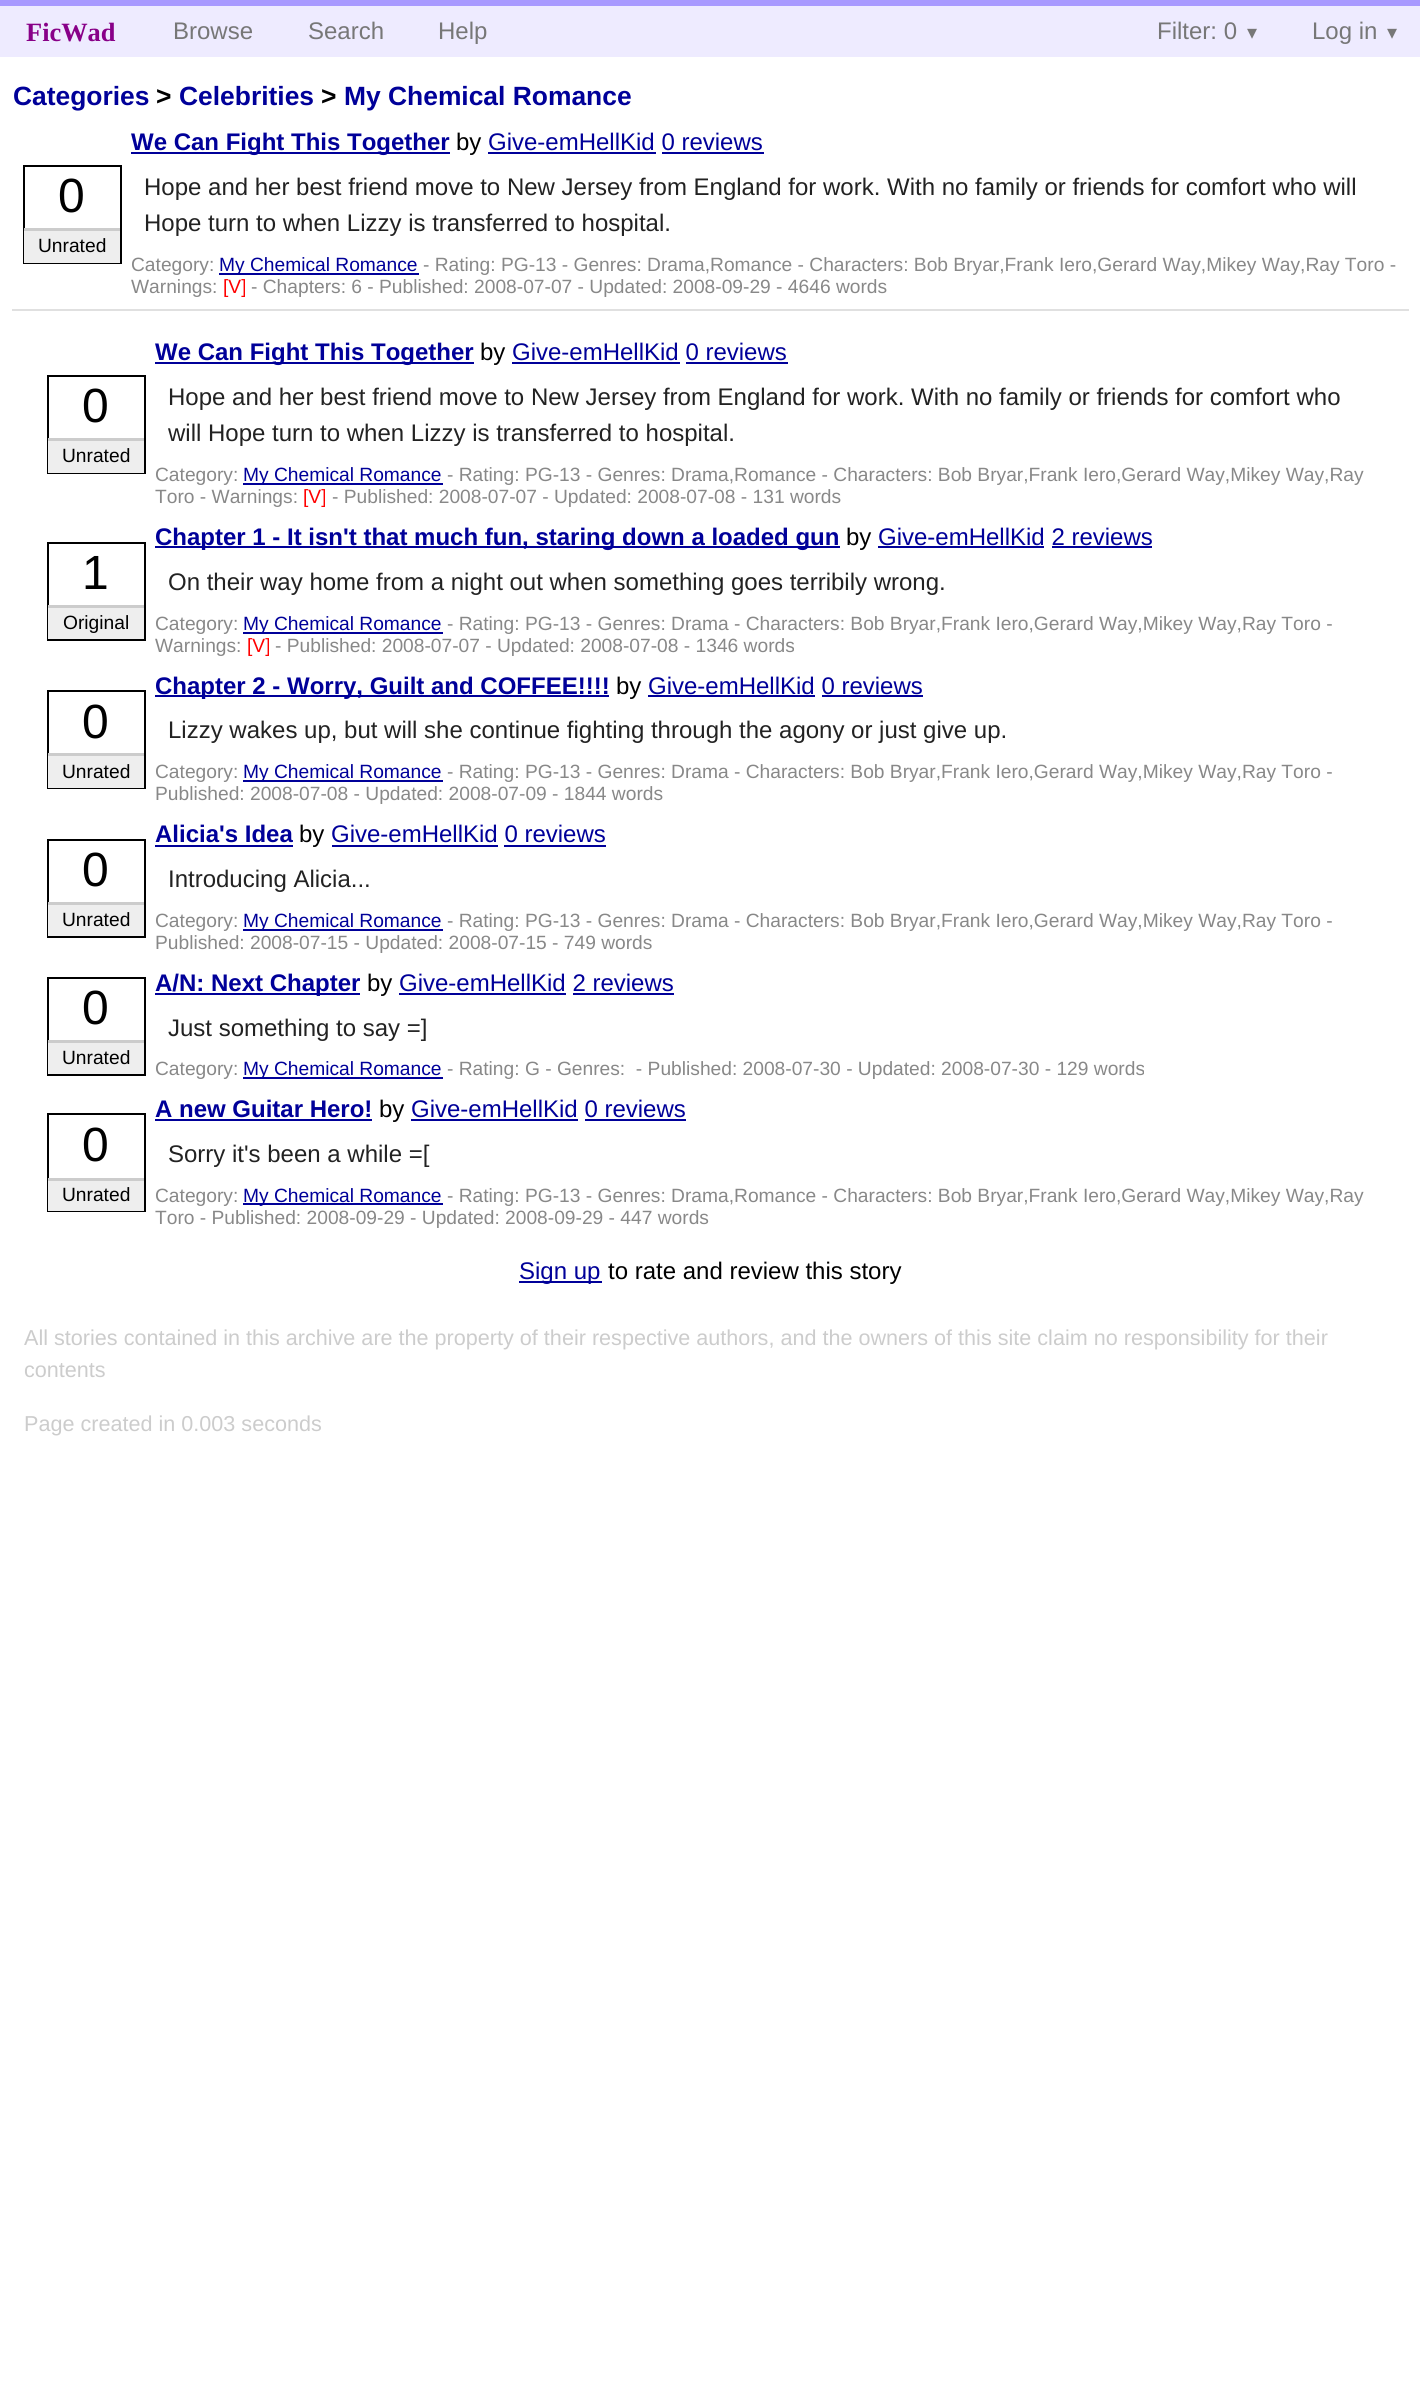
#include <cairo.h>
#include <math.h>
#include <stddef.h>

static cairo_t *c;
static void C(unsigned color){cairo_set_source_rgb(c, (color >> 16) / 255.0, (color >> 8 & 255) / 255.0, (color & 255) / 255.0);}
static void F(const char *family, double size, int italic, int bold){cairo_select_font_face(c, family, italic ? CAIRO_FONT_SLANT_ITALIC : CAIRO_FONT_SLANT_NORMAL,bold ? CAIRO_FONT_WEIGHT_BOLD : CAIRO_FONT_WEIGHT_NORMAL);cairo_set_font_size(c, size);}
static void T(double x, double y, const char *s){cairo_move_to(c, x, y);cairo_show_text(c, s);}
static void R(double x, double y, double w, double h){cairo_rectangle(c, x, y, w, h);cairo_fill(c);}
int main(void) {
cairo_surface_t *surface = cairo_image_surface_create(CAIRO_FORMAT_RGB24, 1420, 2388);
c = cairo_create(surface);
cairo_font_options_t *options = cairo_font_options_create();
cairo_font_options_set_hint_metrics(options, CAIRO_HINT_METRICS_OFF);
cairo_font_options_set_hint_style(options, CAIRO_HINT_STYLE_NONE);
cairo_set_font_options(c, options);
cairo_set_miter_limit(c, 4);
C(0xffffff);
cairo_paint(c);
C(0xeeebff);
R(0,6,1420,51);
C(0xa899ff);
R(0,0,1420,6);
F("Liberation Serif",26.4,0,1);
C(0x880088);
T(26,41,"FicWad");
F("Liberation Sans",24,0,0);
C(0x777777);
T(173,39,"Browse");
T(308,39,"Search");
T(438,39,"Help");
T(1157,39,"Filter: 0");
F("DejaVu Sans",20,0,0);
T(1247,39,"▾");
F("Liberation Sans",24,0,0);
T(1312,39,"Log in");
F("DejaVu Sans",20,0,0);
T(1387,39,"▾");
F("Liberation Sans",26.4,0,1);
C(0x000099);
T(13,105,"Categories");
C(0x000000);
T(156,105,">");
C(0x000099);
T(179,105,"Celebrities");
C(0x000000);
T(321,105,">");
C(0x000099);
T(344,105,"My Chemical Romance");
C(0xe0e0e0);
R(12,309,1397,2);
C(0x000099);
R(131,152,319,2);
F("Liberation Sans",24,0,1);
T(131,150,"We Can Fight This Together");
F("Liberation Sans",24,0,0);
C(0x000000);
T(456,150,"by");
C(0x000099);
T(488,150,"Give-emHellKid 0 reviews");
R(488,152,168,2);
R(662,152,102,2);
cairo_rectangle(c,24,166,97,97);
C(0x000000);
cairo_stroke(c);
F("Liberation Sans",48,0,0);
T(58,212,"0");
C(0xeeeeee);
R(24,231,96,32);
C(0xcccccc);
R(24,228,96,3);
F("Liberation Sans",19.2,0,0);
C(0x000000);
T(38,252,"Unrated");
F("Liberation Sans",24,0,0);
C(0x222222);
T(144,195,"Hope and her best friend move to New Jersey from England for work. With no family or friends for comfort who will");
T(144,231,"Hope turn to when Lizzy is transferred to hospital.");
F("Liberation Sans",19.2,0,0);
C(0x888888);
T(131,271,"Category:");
C(0x000099);
R(219,273,200,2);
T(219,271,"My Chemical Romance");
C(0x888888);
T(423,271,"- Rating: PG-13 - Genres: Drama,Romance - Characters: Bob Bryar,Frank Iero,Gerard Way,Mikey Way,Ray Toro -");
T(131,293,"Warnings:");
C(0xff0000);
T(223,293,"[V]");
C(0x888888);
T(251,293,"- Chapters: 6 - Published: 2008-07-07 - Updated: 2008-09-29 - 4646 words");
C(0x000099);
R(155,362,319,2);
F("Liberation Sans",24,0,1);
T(155,360,"We Can Fight This Together");
F("Liberation Sans",24,0,0);
C(0x000000);
T(480,360,"by");
C(0x000099);
T(512,360,"Give-emHellKid 0 reviews");
R(512,362,168,2);
R(686,362,102,2);
cairo_rectangle(c,48,376,97,97);
C(0x000000);
cairo_stroke(c);
F("Liberation Sans",48,0,0);
T(82,422,"0");
C(0xeeeeee);
R(48,441,96,32);
C(0xcccccc);
R(48,438,96,3);
F("Liberation Sans",19.2,0,0);
C(0x000000);
T(62,462,"Unrated");
F("Liberation Sans",24,0,0);
C(0x222222);
T(168,405,"Hope and her best friend move to New Jersey from England for work. With no family or friends for comfort who");
T(168,441,"will Hope turn to when Lizzy is transferred to hospital.");
F("Liberation Sans",19.2,0,0);
C(0x888888);
T(155,481,"Category:");
C(0x000099);
R(243,483,200,2);
T(243,481,"My Chemical Romance");
C(0x888888);
T(447,481,"- Rating: PG-13 - Genres: Drama,Romance - Characters: Bob Bryar,Frank Iero,Gerard Way,Mikey Way,Ray");
T(155,503,"Toro - Warnings:");
C(0xff0000);
T(303,503,"[V]");
C(0x888888);
T(332,503,"- Published: 2008-07-07 - Updated: 2008-07-08 - 131 words");
C(0x000099);
R(155,546,685,2);
F("Liberation Sans",24,0,1);
T(155,545,"Chapter 1 - It isn't that much fun, staring down a loaded gun");
F("Liberation Sans",24,0,0);
C(0x000000);
T(846,545,"by");
C(0x000099);
T(878,545,"Give-emHellKid 2 reviews");
R(878,546,166,2);
R(1052,546,100,2);
cairo_rectangle(c,48,543,97,97);
C(0x000000);
cairo_stroke(c);
F("Liberation Sans",48,0,0);
T(82,589,"1");
C(0xeeeeee);
R(48,608,96,31);
C(0xcccccc);
R(48,605,96,3);
F("Liberation Sans",19.2,0,0);
C(0x000000);
T(63,629,"Original");
F("Liberation Sans",24,0,0);
C(0x222222);
T(168,590,"On their way home from a night out when something goes terribily wrong.");
F("Liberation Sans",19.2,0,0);
C(0x888888);
T(155,630,"Category:");
C(0x000099);
R(243,632,200,2);
T(243,630,"My Chemical Romance");
C(0x888888);
T(447,630,"- Rating: PG-13 - Genres: Drama - Characters: Bob Bryar,Frank Iero,Gerard Way,Mikey Way,Ray Toro -");
T(155,652,"Warnings:");
C(0xff0000);
T(247,652,"[V]");
C(0x888888);
T(275,652,"- Published: 2008-07-07 - Updated: 2008-07-08 - 1346 words");
C(0x000099);
R(155,695,454,2);
F("Liberation Sans",24,0,1);
T(155,694,"Chapter 2 - Worry, Guilt and COFFEE!!!!");
F("Liberation Sans",24,0,0);
C(0x000000);
T(616,694,"by");
C(0x000099);
T(648,694,"Give-emHellKid 0 reviews");
R(648,695,167,2);
R(822,695,101,2);
cairo_rectangle(c,48,691,97,97);
C(0x000000);
cairo_stroke(c);
F("Liberation Sans",48,0,0);
T(82,738,"0");
C(0xeeeeee);
R(48,756,96,32);
C(0xcccccc);
R(48,753,96,3);
F("Liberation Sans",19.2,0,0);
C(0x000000);
T(62,778,"Unrated");
F("Liberation Sans",24,0,0);
C(0x222222);
T(168,738,"Lizzy wakes up, but will she continue fighting through the agony or just give up.");
F("Liberation Sans",19.2,0,0);
C(0x888888);
T(155,778,"Category:");
C(0x000099);
R(243,780,200,2);
T(243,778,"My Chemical Romance");
C(0x888888);
T(447,778,"- Rating: PG-13 - Genres: Drama - Characters: Bob Bryar,Frank Iero,Gerard Way,Mikey Way,Ray Toro -");
T(155,800,"Published: 2008-07-08 - Updated: 2008-07-09 - 1844 words");
F("Liberation Sans",24,0,1);
C(0x000099);
T(155,842,"Alicia's Idea");
R(155,845,138,2);
F("Liberation Sans",24,0,0);
C(0x000000);
T(299,842,"by");
C(0x000099);
T(331,842,"Give-emHellKid 0 reviews");
R(332,845,166,2);
R(504,845,102,2);
cairo_rectangle(c,48,840,97,97);
C(0x000000);
cairo_stroke(c);
F("Liberation Sans",48,0,0);
T(82,886,"0");
C(0xeeeeee);
R(48,905,96,31);
C(0xcccccc);
R(48,902,96,3);
F("Liberation Sans",19.2,0,0);
C(0x000000);
T(62,926,"Unrated");
F("Liberation Sans",24,0,0);
C(0x222222);
T(168,887,"Introducing Alicia...");
F("Liberation Sans",19.2,0,0);
C(0x888888);
T(155,927,"Category:");
C(0x000099);
R(243,929,200,2);
T(243,927,"My Chemical Romance");
C(0x888888);
T(447,927,"- Rating: PG-13 - Genres: Drama - Characters: Bob Bryar,Frank Iero,Gerard Way,Mikey Way,Ray Toro -");
T(155,949,"Published: 2008-07-15 - Updated: 2008-07-15 - 749 words");
C(0x000099);
R(155,993,205,2);
F("Liberation Sans",24,0,1);
T(155,991,"A/N: Next Chapter");
F("Liberation Sans",24,0,0);
C(0x000000);
T(367,991,"by");
C(0x000099);
T(399,991,"Give-emHellKid 2 reviews");
R(399,993,167,2);
R(573,993,101,2);
cairo_rectangle(c,48,978,97,97);
C(0x000000);
cairo_stroke(c);
F("Liberation Sans",48,0,0);
T(82,1024,"0");
C(0xeeeeee);
R(48,1043,96,31);
C(0xcccccc);
R(48,1040,96,3);
F("Liberation Sans",19.2,0,0);
C(0x000000);
T(62,1064,"Unrated");
F("Liberation Sans",24,0,0);
C(0x222222);
T(168,1036,"Just something to say =]");
F("Liberation Sans",19.2,0,0);
C(0x888888);
T(155,1075,"Category:");
C(0x000099);
R(243,1077,200,2);
T(243,1075,"My Chemical Romance");
C(0x888888);
T(447,1075,"- Rating: G - Genres:  - Published: 2008-07-30 - Updated: 2008-07-30 - 129 words");
F("Liberation Sans",24,0,1);
C(0x000099);
T(155,1117,"A new Guitar Hero!");
R(155,1119,217,2);
F("Liberation Sans",24,0,0);
C(0x000000);
T(379,1117,"by");
C(0x000099);
T(411,1117,"Give-emHellKid 0 reviews");
R(411,1119,167,2);
R(585,1119,101,2);
cairo_rectangle(c,48,1114,97,97);
C(0x000000);
cairo_stroke(c);
F("Liberation Sans",48,0,0);
T(82,1161,"0");
C(0xeeeeee);
R(48,1181,96,30);
C(0xcccccc);
R(48,1178,96,3);
F("Liberation Sans",19.2,0,0);
C(0x000000);
T(62,1201,"Unrated");
F("Liberation Sans",24,0,0);
C(0x222222);
T(168,1162,"Sorry it's been a while =[");
F("Liberation Sans",19.2,0,0);
C(0x888888);
T(155,1202,"Category:");
C(0x000099);
R(243,1203,200,2);
T(243,1202,"My Chemical Romance");
C(0x888888);
T(447,1202,"- Rating: PG-13 - Genres: Drama,Romance - Characters: Bob Bryar,Frank Iero,Gerard Way,Mikey Way,Ray");
T(155,1224,"Toro - Published: 2008-09-29 - Updated: 2008-09-29 - 447 words");
C(0x000099);
R(519,1281,83,2);
F("Liberation Sans",24,0,0);
T(519,1279,"Sign up");
C(0x000000);
T(608,1279,"to rate and review this story");
F("Liberation Sans",21.6,0,0);
C(0xcccccc);
T(24,1345,"All stories contained in this archive are the property of their respective authors, and the owners of this site claim no responsibility for their");
T(24,1377,"contents");
T(24,1431,"Page created in 0.003 seconds");
cairo_surface_write_to_png(surface, "o.png");
cairo_font_options_destroy(options);
cairo_destroy(c);
cairo_surface_destroy(surface);
return 0;
}
